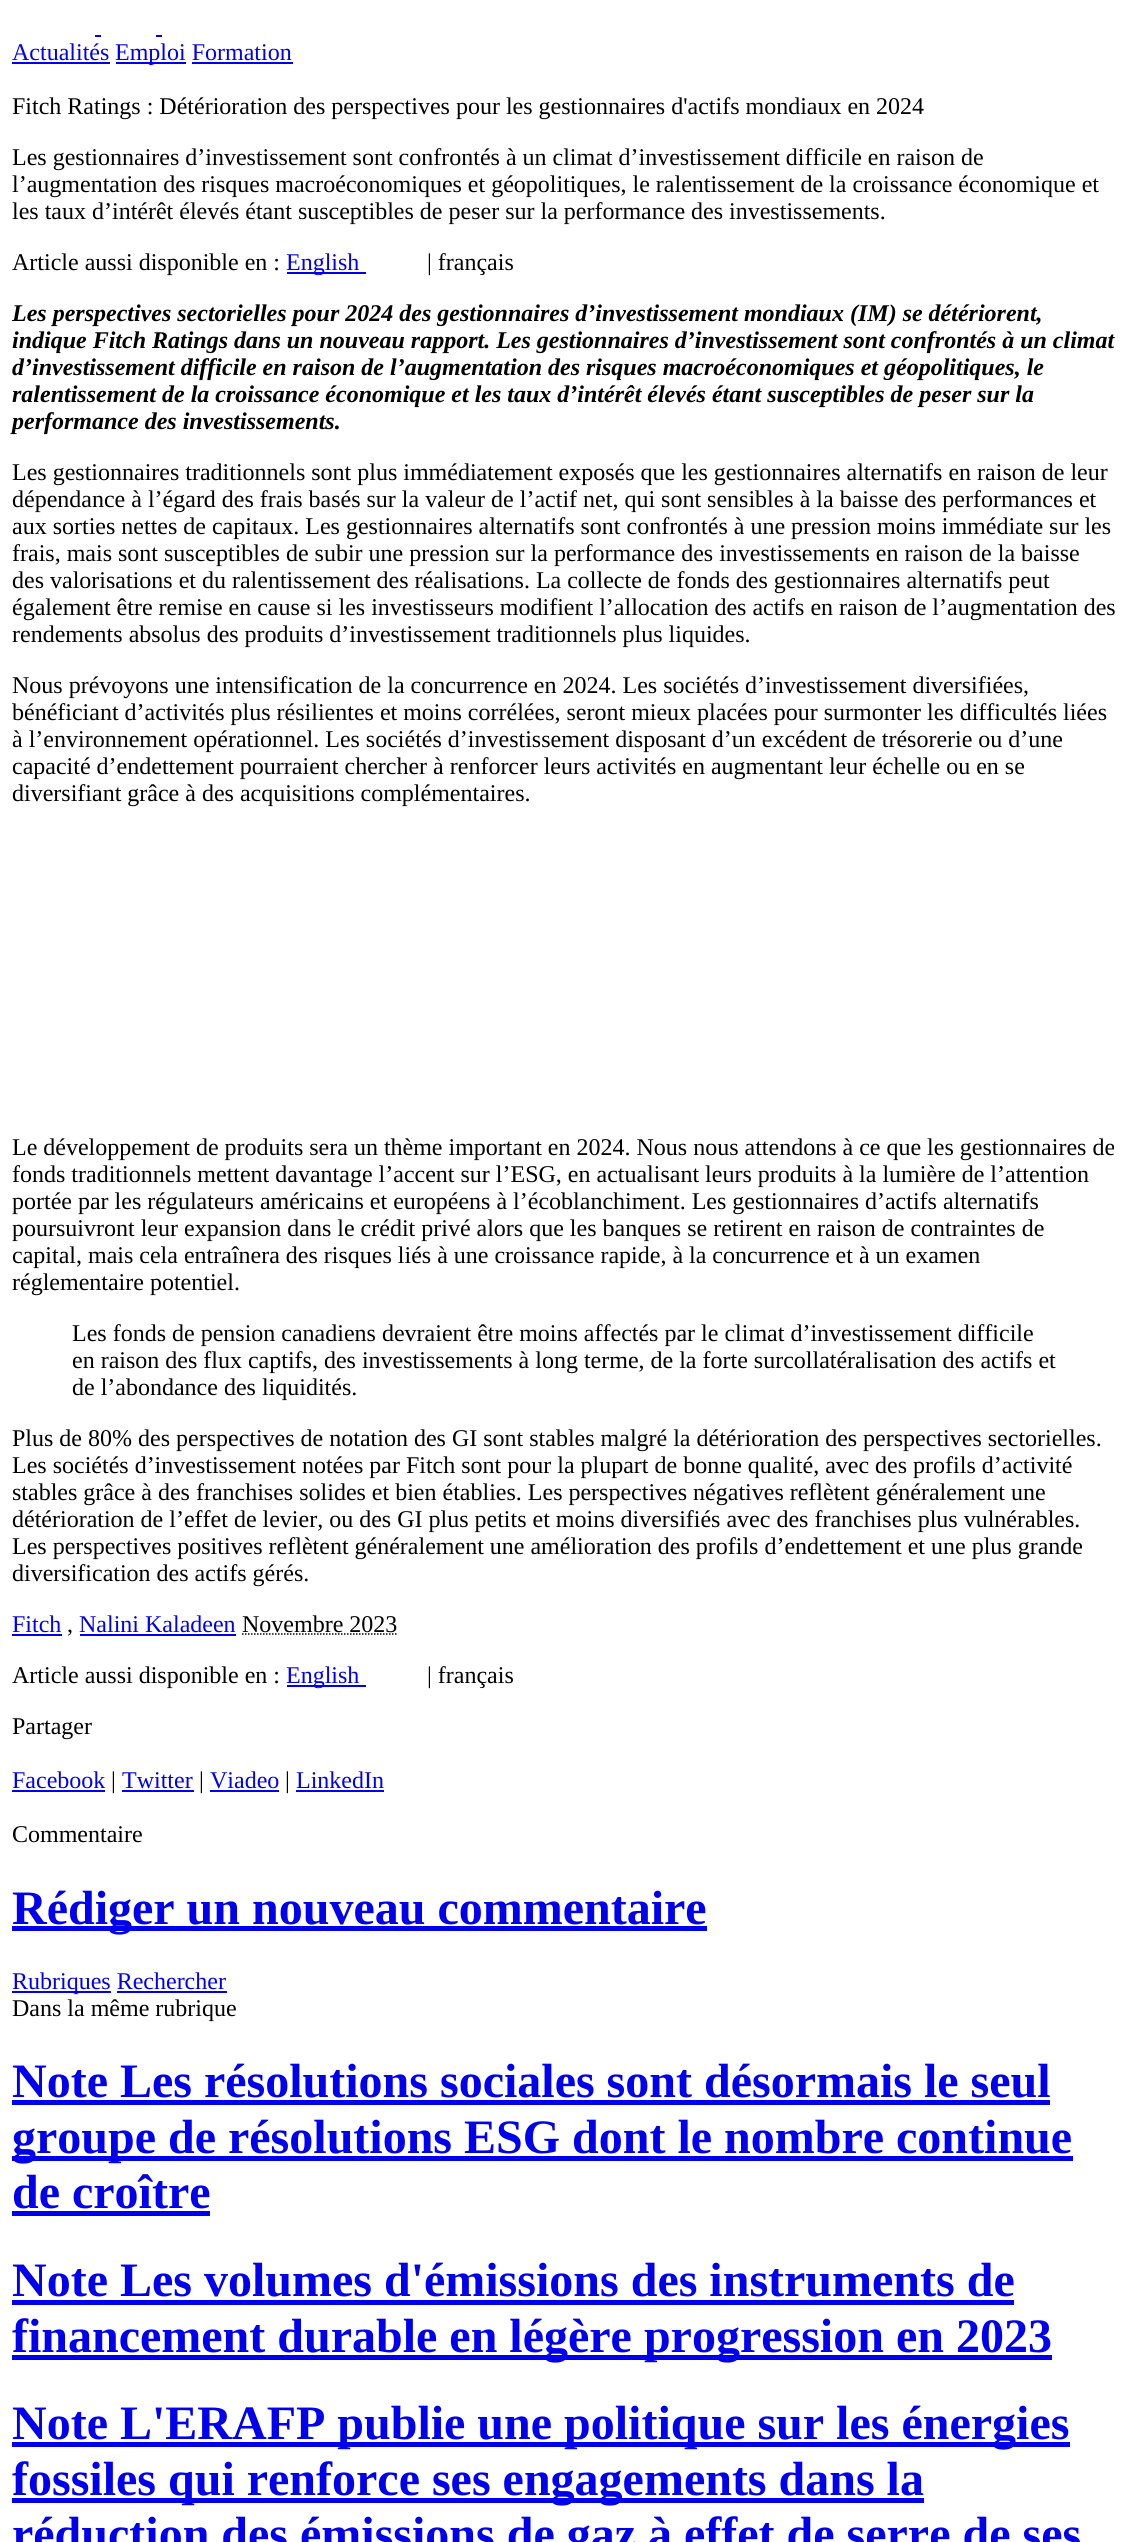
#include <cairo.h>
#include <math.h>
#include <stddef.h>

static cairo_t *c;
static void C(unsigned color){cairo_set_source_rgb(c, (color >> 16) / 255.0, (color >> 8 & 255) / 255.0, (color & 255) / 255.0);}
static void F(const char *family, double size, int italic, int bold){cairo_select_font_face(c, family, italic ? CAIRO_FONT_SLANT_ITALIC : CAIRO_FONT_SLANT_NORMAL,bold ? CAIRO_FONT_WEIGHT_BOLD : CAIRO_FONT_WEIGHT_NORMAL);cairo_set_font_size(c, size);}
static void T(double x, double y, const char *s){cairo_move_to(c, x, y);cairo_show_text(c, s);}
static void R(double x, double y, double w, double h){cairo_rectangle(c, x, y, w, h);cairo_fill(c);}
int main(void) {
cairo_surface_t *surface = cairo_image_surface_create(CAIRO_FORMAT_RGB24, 1128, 2542);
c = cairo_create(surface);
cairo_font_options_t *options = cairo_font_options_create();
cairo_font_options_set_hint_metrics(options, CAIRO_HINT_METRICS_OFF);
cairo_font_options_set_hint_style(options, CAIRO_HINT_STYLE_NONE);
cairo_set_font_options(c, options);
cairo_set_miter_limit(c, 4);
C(0xffffff);
cairo_paint(c);
C(0x0000ee);
R(95,35,6,2);
R(156,35,6,2);
F("Liberation Serif",24,0,0);
T(12,60,"Actualités");
R(12,62,98,2);
R(116,62,70,2);
T(115,60,"Emploi Formation");
R(192,62,101,2);
C(0x000000);
T(12,114,"Fitch Ratings : Détérioration des perspectives pour les gestionnaires d'actifs mondiaux en 2024");
T(12,165,"Les gestionnaires d’investissement sont confrontés à un climat d’investissement difficile en raison de");
T(12,192,"l’augmentation des risques macroéconomiques et géopolitiques, le ralentissement de la croissance économique et");
T(12,219,"les taux d’intérêt élevés étant susceptibles de peser sur la performance des investissements.");
T(12,270,"Article aussi disponible en :");
C(0x0000ee);
R(287,272,79,2);
T(286,270,"English");
C(0x000000);
T(427,270,"| français");
F("Liberation Serif",24,1,1);
T(12,321,"Les perspectives sectorielles pour 2024 des gestionnaires d’investissement mondiaux (IM) se détériorent,");
T(12,348,"indique Fitch Ratings dans un nouveau rapport. Les gestionnaires d’investissement sont confrontés à un climat");
T(12,375,"d’investissement difficile en raison de l’augmentation des risques macroéconomiques et géopolitiques, le");
T(12,402,"ralentissement de la croissance économique et les taux d’intérêt élevés étant susceptibles de peser sur la");
T(12,429,"performance des investissements.");
F("Liberation Serif",24,0,0);
T(12,480,"Les gestionnaires traditionnels sont plus immédiatement exposés que les gestionnaires alternatifs en raison de leur");
T(12,507,"dépendance à l’égard des frais basés sur la valeur de l’actif net, qui sont sensibles à la baisse des performances et");
T(12,534,"aux sorties nettes de capitaux. Les gestionnaires alternatifs sont confrontés à une pression moins immédiate sur les");
T(12,561,"frais, mais sont susceptibles de subir une pression sur la performance des investissements en raison de la baisse");
T(12,588,"des valorisations et du ralentissement des réalisations. La collecte de fonds des gestionnaires alternatifs peut");
T(12,615,"également être remise en cause si les investisseurs modifient l’allocation des actifs en raison de l’augmentation des");
T(12,642,"rendements absolus des produits d’investissement traditionnels plus liquides.");
T(12,693,"Nous prévoyons une intensification de la concurrence en 2024. Les sociétés d’investissement diversifiées,");
T(12,720,"bénéficiant d’activités plus résilientes et moins corrélées, seront mieux placées pour surmonter les difficultés liées");
T(12,747,"à l’environnement opérationnel. Les sociétés d’investissement disposant d’un excédent de trésorerie ou d’une");
T(12,774,"capacité d’endettement pourraient chercher à renforcer leurs activités en augmentant leur échelle ou en se");
T(12,801,"diversifiant grâce à des acquisitions complémentaires.");
T(12,1155,"Le développement de produits sera un thème important en 2024. Nous nous attendons à ce que les gestionnaires de");
T(12,1182,"fonds traditionnels mettent davantage l’accent sur l’ESG, en actualisant leurs produits à la lumière de l’attention");
T(12,1209,"portée par les régulateurs américains et européens à l’écoblanchiment. Les gestionnaires d’actifs alternatifs");
T(12,1236,"poursuivront leur expansion dans le crédit privé alors que les banques se retirent en raison de contraintes de");
T(12,1263,"capital, mais cela entraînera des risques liés à une croissance rapide, à la concurrence et à un examen");
T(12,1290,"réglementaire potentiel.");
T(72,1341,"Les fonds de pension canadiens devraient être moins affectés par le climat d’investissement difficile");
T(72,1368,"en raison des flux captifs, des investissements à long terme, de la forte surcollatéralisation des actifs et");
T(72,1395,"de l’abondance des liquidités.");
T(12,1446,"Plus de 80% des perspectives de notation des GI sont stables malgré la détérioration des perspectives sectorielles.");
T(12,1473,"Les sociétés d’investissement notées par Fitch sont pour la plupart de bonne qualité, avec des profils d’activité");
T(12,1500,"stables grâce à des franchises solides et bien établies. Les perspectives négatives reflètent généralement une");
T(12,1527,"détérioration de l’effet de levier, ou des GI plus petits et moins diversifiés avec des franchises plus vulnérables.");
T(12,1554,"Les perspectives positives reflètent généralement une amélioration des profils d’endettement et une plus grande");
T(12,1581,"diversification des actifs gérés.");
C(0x0000ee);
T(12,1632,"Fitch");
C(0x000000);
T(67,1632,",");
C(0x0000ee);
R(12,1634,50,2);
R(80,1634,156,2);
T(79,1632,"Nalini Kaladeen");
C(0x000000);
T(242,1632,"Novembre 2023");
cairo_new_path(c);
cairo_move_to(c,242,1634);
cairo_line_to(c,397,1634);
cairo_set_line_width(c,1.5);
cairo_set_dash(c,(double[]){1.5,1.5},2,0);
cairo_stroke(c);
T(12,1683,"Article aussi disponible en :");
C(0x0000ee);
R(287,1685,79,2);
T(286,1683,"English");
C(0x000000);
T(427,1683,"| français");
T(12,1734,"Partager");
C(0x0000ee);
T(12,1788,"Facebook");
R(12,1790,93,2);
C(0x000000);
T(111,1788,"|");
C(0x0000ee);
T(122,1788,"Twitter");
R(122,1790,72,2);
C(0x000000);
T(199,1788,"|");
C(0x0000ee);
T(210,1788,"Viadeo");
R(210,1790,69,2);
C(0x000000);
T(285,1788,"|");
C(0x0000ee);
T(296,1788,"LinkedIn");
R(296,1790,88,2);
C(0x000000);
T(12,1842,"Commentaire");
C(0x0000ee);
R(12,1926,695,5);
F("Liberation Serif",48,0,1);
T(12,1924,"Rédiger un nouveau commentaire");
R(12,1991,99,2);
F("Liberation Serif",24,0,0);
T(12,1989,"Rubriques Rechercher");
R(117,1991,110,2);
C(0x000000);
T(12,2016,"Dans la même rubrique");
F("Liberation Serif",48,0,1);
C(0x0000ee);
T(12,2097,"Note Les résolutions sociales sont désormais le seul");
R(12,2100,1038,5);
R(12,2156,1061,5);
T(12,2153,"groupe de résolutions ESG dont le nombre continue");
T(12,2208,"de croître");
R(12,2211,198,5);
T(12,2296,"Note Les volumes d'émissions des instruments de");
R(12,2300,1002,5);
R(12,2355,1040,5);
T(12,2352,"financement durable en légère progression en 2023");
R(12,2442,1058,5);
T(12,2439,"Note L'ERAFP publie une politique sur les énergies");
R(12,2498,912,5);
T(12,2495,"fossiles qui renforce ses engagements dans la");
T(12,2550,"réduction des émissions de gaz à effet de serre de ses");
cairo_surface_write_to_png(surface, "o.png");
cairo_font_options_destroy(options);
cairo_destroy(c);
cairo_surface_destroy(surface);
return 0;
}
